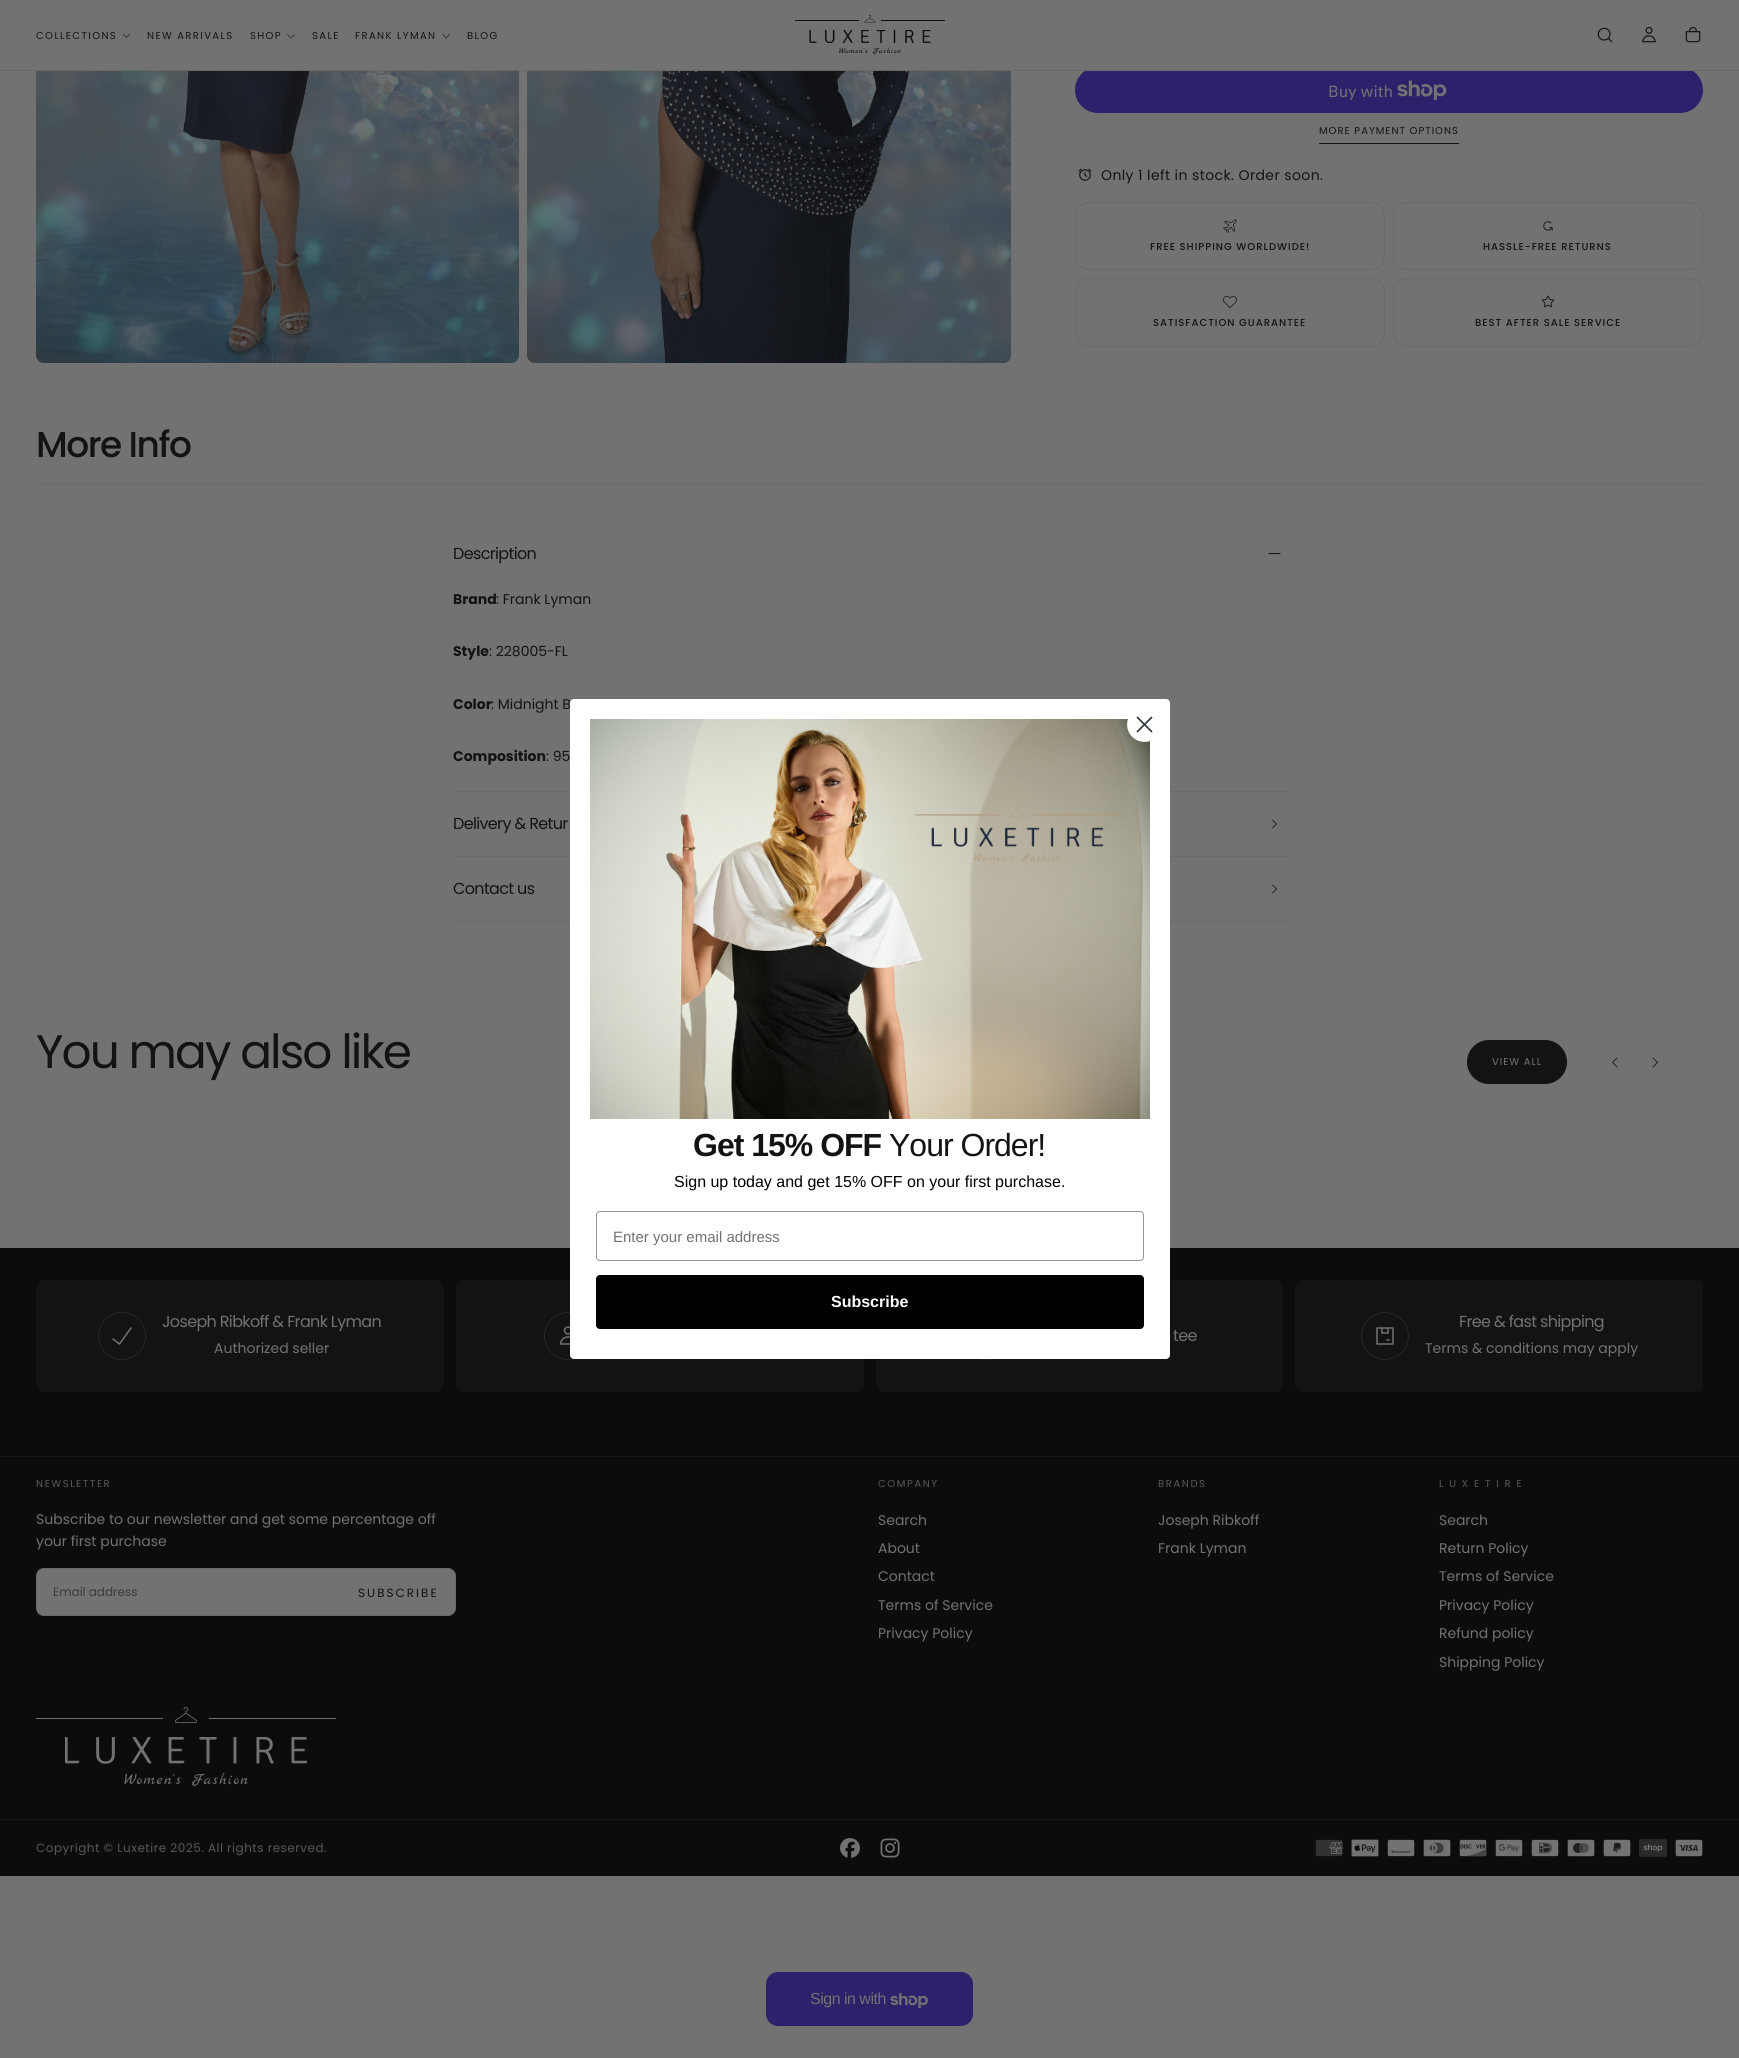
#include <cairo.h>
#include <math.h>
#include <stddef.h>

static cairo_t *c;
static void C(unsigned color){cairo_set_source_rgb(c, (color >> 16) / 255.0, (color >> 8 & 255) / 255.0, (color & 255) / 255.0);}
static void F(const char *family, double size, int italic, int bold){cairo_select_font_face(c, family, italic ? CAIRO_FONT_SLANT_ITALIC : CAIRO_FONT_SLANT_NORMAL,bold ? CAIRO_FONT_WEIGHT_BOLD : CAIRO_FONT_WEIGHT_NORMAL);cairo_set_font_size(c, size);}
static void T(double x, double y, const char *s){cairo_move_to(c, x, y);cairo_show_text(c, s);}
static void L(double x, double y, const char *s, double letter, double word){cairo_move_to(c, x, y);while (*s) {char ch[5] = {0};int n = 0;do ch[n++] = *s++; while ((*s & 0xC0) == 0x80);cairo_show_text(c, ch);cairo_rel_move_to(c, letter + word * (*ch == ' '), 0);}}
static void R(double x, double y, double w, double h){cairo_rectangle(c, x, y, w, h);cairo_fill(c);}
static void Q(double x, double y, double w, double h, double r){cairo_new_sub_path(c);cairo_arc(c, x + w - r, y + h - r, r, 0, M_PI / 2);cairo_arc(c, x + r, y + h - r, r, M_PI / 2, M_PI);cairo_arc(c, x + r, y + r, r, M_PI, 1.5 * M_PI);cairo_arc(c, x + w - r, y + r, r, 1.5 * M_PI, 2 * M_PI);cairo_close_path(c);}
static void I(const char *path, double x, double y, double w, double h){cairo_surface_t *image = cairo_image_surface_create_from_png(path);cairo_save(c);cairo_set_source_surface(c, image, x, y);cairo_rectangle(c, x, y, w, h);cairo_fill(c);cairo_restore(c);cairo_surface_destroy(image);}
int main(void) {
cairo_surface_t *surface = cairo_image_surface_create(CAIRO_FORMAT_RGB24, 1739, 2058);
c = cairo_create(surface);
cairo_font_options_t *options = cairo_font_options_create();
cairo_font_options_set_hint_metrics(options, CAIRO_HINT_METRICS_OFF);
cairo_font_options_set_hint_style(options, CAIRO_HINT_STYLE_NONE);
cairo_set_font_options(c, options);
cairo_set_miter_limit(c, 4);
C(0x727272);
cairo_paint(c);
C(0x505050);
Q(36,-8,483,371,8);
cairo_fill(c);
Q(527,-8,484,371,8);
cairo_fill(c);
C(0x2e206a);
Q(1075,67,628,46,23);
cairo_fill(c);
C(0x727272);
R(36,0,1656,70);
C(0x686868);
R(0,70,1739,1);
F("Poppins",10,0,0);
C(0x131313);
L(36,39,"COLLECTIONS",1.4,0);
cairo_new_path(c);
cairo_move_to(c,130,34);
cairo_line_to(c,126.5,37.5);
cairo_line_to(c,123,34);
cairo_set_line_width(c,.6);
cairo_set_line_cap(c,CAIRO_LINE_CAP_ROUND);
cairo_set_line_join(c,CAIRO_LINE_JOIN_ROUND);
cairo_stroke(c);
L(147,39,"NEW ARRIVALS",1.4,0);
L(250,39,"SHOP",1.4,0);
cairo_new_path(c);
cairo_move_to(c,294.5,34.5);
cairo_line_to(c,291,38);
cairo_line_to(c,287.5,34.5);
cairo_stroke(c);
L(312,39,"SALE",1.4,0);
L(355,39,"FRANK LYMAN",1.4,0);
cairo_new_path(c);
cairo_move_to(c,449.5,34.5);
cairo_line_to(c,446,38);
cairo_line_to(c,443,34.5);
cairo_stroke(c);
L(467,39,"BLOG",1.4,0);
I("1.png",795,15,150,39);
I("2.png",1597,27,16,16);
I("3.png",1642,26,14,17);
I("4.png",1685,26,16,17);
I("5.png",36,71,483,292);
I("6.png",527,71,484,292);
F("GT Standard",16,0,0);
C(0x727272);
T(1328,97,"Buy with");
I("7.png",1397,80,50,20);
F("Poppins",10,0,0);
C(0x131313);
L(1319,134,"MORE PAYMENT OPTIONS",1,0);
R(1319,143,140,1);
I("8.png",1078,168,14,13);
F("Poppins",14,0,0);
L(1101,180,"Only 1 left in stock. Order soon.",.4,0);
Q(1075.5,202.5,309,67,13.5);
C(0x6a6a6a);
cairo_set_line_width(c,1);
cairo_set_line_cap(c,CAIRO_LINE_CAP_BUTT);
cairo_set_line_join(c,CAIRO_LINE_JOIN_MITER);
cairo_stroke(c);
I("9.png",1223,219,14,14);
F("Poppins Medium",10,0,0);
C(0x131313);
L(1150,250,"FREE SHIPPING WORLDWIDE!",1,0);
Q(1393.5,202.5,309,67,13.5);
C(0x6a6a6a);
cairo_stroke(c);
I("10.png",1543,221,10,10);
C(0x131313);
L(1483,250,"HASSLE-FREE RETURNS",1,0);
Q(1075.5,278.5,309,68,13.5);
C(0x6a6a6a);
cairo_stroke(c);
I("11.png",1223,296,14,12);
C(0x131313);
L(1153,326,"SATISFACTION GUARANTEE",1,0);
Q(1393.5,278.5,309,68,13.5);
C(0x6a6a6a);
cairo_stroke(c);
I("12.png",1542,295,12,13);
C(0x131313);
L(1475,326,"BEST AFTER SALE SERVICE",1,0);
C(0x6a6a6a);
R(36,483,1667,1);
F("Poppins Medium",36,0,0);
C(0x131313);
L(36,457,"More Info",-1.5,0);
C(0x6a6a6a);
R(453,791,833,1);
F("Poppins",16,0,0);
C(0x131313);
L(453,559,"Description",-.65,0);
cairo_new_path(c);
cairo_move_to(c,1280,553.5);
cairo_line_to(c,1269,553.5);
cairo_move_to(c,1280,553.5);
cairo_line_to(c,1269,553.5);
cairo_set_line_cap(c,CAIRO_LINE_CAP_ROUND);
cairo_stroke(c);
F("Poppins",14,0,1);
T(453,604,"Brand");
F("Poppins",14,0,0);
T(496,604,": Frank Lyman");
F("Poppins",14,0,1);
T(453,656,"Style");
F("Poppins",14,0,0);
T(489,656,": 228005-FL");
F("Poppins",14,0,1);
T(453,709,"Color");
F("Poppins",14,0,0);
T(491,709,": Midnight B");
F("Poppins",14,0,1);
T(453,761,"Composition");
F("Poppins",14,0,0);
T(546,761,": 95");
C(0x6a6a6a);
R(453,856,833,1);
F("Poppins",16,0,0);
C(0x131313);
L(453,829,"Delivery & Retur",-.65,0);
cairo_new_path(c);
cairo_move_to(c,1272.5,820);
cairo_line_to(c,1276.5,824);
cairo_line_to(c,1272.5,828);
cairo_set_line_width(c,.8);
cairo_set_line_join(c,CAIRO_LINE_JOIN_ROUND);
cairo_stroke(c);
C(0x6a6a6a);
R(453,921,833,1);
C(0x131313);
L(453,894,"Contact us",-.65,0);
cairo_new_path(c);
cairo_move_to(c,1272.5,885);
cairo_line_to(c,1276.5,889);
cairo_line_to(c,1272.5,893);
cairo_stroke(c);
F("Poppins",47,0,0);
L(36,1068,"You may also like",-1.9,0);
Q(1467.5,1040.5,99,43,21.5);
cairo_fill_preserve(c);
cairo_set_line_width(c,1);
cairo_set_line_cap(c,CAIRO_LINE_CAP_BUTT);
cairo_set_line_join(c,CAIRO_LINE_JOIN_MITER);
cairo_stroke(c);
F("Poppins",10,0,0);
C(0x727272);
L(1492,1065,"VIEW ALL",1,0);
cairo_new_path(c);
cairo_move_to(c,1617,1058);
cairo_line_to(c,1612.5,1062.5);
cairo_line_to(c,1617,1067);
cairo_move_to(c,1653,1058);
cairo_line_to(c,1657.5,1062.5);
cairo_line_to(c,1653,1067);
C(0x131313);
cairo_set_line_width(c,.8);
cairo_set_line_cap(c,CAIRO_LINE_CAP_ROUND);
cairo_set_line_join(c,CAIRO_LINE_JOIN_ROUND);
cairo_stroke(c);
C(0x0c0c0c);
R(0,1248,1739,628);
C(0x131313);
Q(456,1280,408,112,8);
cairo_fill(c);
cairo_arc(c,568,1336,23.5,0,2 * M_PI);
C(0x262626);
cairo_set_line_width(c,1);
cairo_set_line_cap(c,CAIRO_LINE_CAP_BUTT);
cairo_set_line_join(c,CAIRO_LINE_JOIN_MITER);
cairo_stroke(c);
C(0x131313);
Q(876,1280,407,112,8);
cairo_fill(c);
cairo_arc(c,986,1336,23.5,0,2 * M_PI);
C(0x262626);
cairo_stroke(c);
C(0xffffff);
Q(570,699,600,660,4);
cairo_fill(c);
I("13.png",590,719,560,400);
cairo_arc(c,1144.5,724.5,16.5,0,2 * M_PI);
cairo_fill_preserve(c);
cairo_set_line_width(c,1.8);
cairo_stroke(c);
cairo_new_path(c);
cairo_move_to(c,1137.5,717.5);
cairo_line_to(c,1151.5,731.5);
cairo_move_to(c,1137.5,731.5);
cairo_line_to(c,1151.5,717.5);
cairo_close_path(c);
C(0x373f47);
cairo_set_line_cap(c,CAIRO_LINE_CAP_ROUND);
cairo_set_line_join(c,CAIRO_LINE_JOIN_ROUND);
cairo_stroke(c);
F("Liberation Sans",32,0,1);
C(0x131313);
L(693,1156,"Get 15% OFF",-1,0);
F("Liberation Sans",32,0,0);
L(889,1156,"Your Order!",-1,0);
F("Liberation Sans",16,0,0);
C(0x000000);
T(674,1187,"Sign up today and get 15% OFF on your first purchase.");
Q(596.5,1211.5,547,49,3.5);
C(0x949596);
cairo_set_line_width(c,1);
cairo_set_line_cap(c,CAIRO_LINE_CAP_BUTT);
cairo_set_line_join(c,CAIRO_LINE_JOIN_MITER);
cairo_stroke(c);
F("Liberation Sans",15,0,0);
C(0x727272);
T(613,1242,"Enter your email address");
C(0x000000);
Q(596,1275,548,54,4);
cairo_fill(c);
F("Liberation Sans",16,0,1);
C(0xffffff);
T(831,1307,"Subscribe");
C(0x131313);
Q(36,1280,408,112,8);
cairo_fill(c);
cairo_arc(c,122,1336,23.5,0,2 * M_PI);
C(0x262626);
cairo_stroke(c);
cairo_new_path(c);
cairo_move_to(c,113,1339);
cairo_line_to(c,119.5,1344);
cairo_line_to(c,131,1328);
C(0x727272);
cairo_set_line_width(c,1.5);
cairo_set_line_cap(c,CAIRO_LINE_CAP_ROUND);
cairo_set_line_join(c,CAIRO_LINE_JOIN_ROUND);
cairo_stroke(c);
F("Poppins",16,0,0);
L(162,1327,"Joseph Ribkoff & Frank Lyman",-.65,0);
F("Poppins",14,0,0);
T(214,1353,"Authorized seller");
I("14.png",559,1326,11,19);
F("Poppins",16,0,0);
L(1173,1341,"tee",-.65,0);
C(0x131313);
Q(1295,1280,408,112,8);
cairo_fill(c);
cairo_arc(c,1385,1336,23.5,0,2 * M_PI);
C(0x262626);
cairo_set_line_width(c,1);
cairo_set_line_cap(c,CAIRO_LINE_CAP_BUTT);
cairo_set_line_join(c,CAIRO_LINE_JOIN_MITER);
cairo_stroke(c);
I("15.png",1376,1327,18,18);
C(0x727272);
L(1459,1327,"Free & fast shipping",-.65,0);
F("Poppins",14,0,0);
T(1425,1353,"Terms & conditions may apply");
C(0x161616);
R(0,1456,1739,1);
F("Poppins",10,0,0);
C(0x585858);
L(36,1487,"NEWSLETTER",1.6,0);
F("Poppins",14,0,0);
C(0x727272);
T(36,1524,"Subscribe to our newsletter and get some percentage off");
T(36,1546,"your first purchase");
Q(36.5,1568.5,419,47,7.5);
cairo_fill_preserve(c);
C(0x6a6a6a);
cairo_stroke(c);
F("Poppins",12,0,0);
C(0x3b3b3b);
T(53,1596,"Email address");
C(0x131313);
L(358,1597,"SUBSCRIBE",2,0);
F("Poppins",10,0,0);
C(0x585858);
L(878,1487,"COMPANY",1.6,0);
F("Poppins",14,0,0);
C(0x727272);
T(878,1525,"Search");
T(878,1553,"About");
T(878,1581,"Contact");
T(878,1610,"Terms of Service");
T(878,1638,"Privacy Policy");
F("Poppins",10,0,0);
C(0x585858);
L(1158,1487,"BRANDS",1.6,0);
F("Poppins",14,0,0);
C(0x727272);
T(1158,1525,"Joseph Ribkoff");
T(1158,1553,"Frank Lyman");
F("Poppins",10,0,0);
C(0x585858);
L(1439,1487,"L U X E T I R E",1.6,0);
F("Poppins",14,0,0);
C(0x727272);
T(1439,1525,"Search");
T(1439,1553,"Return Policy");
T(1439,1581,"Terms of Service");
T(1439,1610,"Privacy Policy");
T(1439,1638,"Refund policy");
T(1439,1667,"Shipping Policy");
I("16.png",36,1707,300,79);
C(0x161616);
R(0,1819,1739,1);
F("Poppins",12,0,0);
C(0x585858);
L(36,1852,"Copyright © Luxetire 2025. All rights reserved.",.5,0);
I("17.png",840,1838,20,20);
I("18.png",880,1838,20,20);
I("19.png",1315,1839,28,18);
I("20.png",1351,1839,28,18);
I("21.png",1387,1839,28,18);
I("22.png",1423,1839,28,18);
I("23.png",1459,1839,28,18);
I("24.png",1495,1839,28,18);
I("25.png",1531,1839,28,18);
I("26.png",1567,1839,28,18);
I("27.png",1603,1839,28,18);
I("28.png",1639,1839,28,18);
I("29.png",1675,1839,28,18);
C(0x2e206a);
Q(766,1972,207,54,12);
cairo_fill(c);
F("Liberation Sans",16,0,0);
C(0x727272);
L(810,2004,"Sign in with",-.5,0);
I("30.png",890,1993,38,16);
cairo_surface_write_to_png(surface, "o.png");
cairo_font_options_destroy(options);
cairo_destroy(c);
cairo_surface_destroy(surface);
return 0;
}
